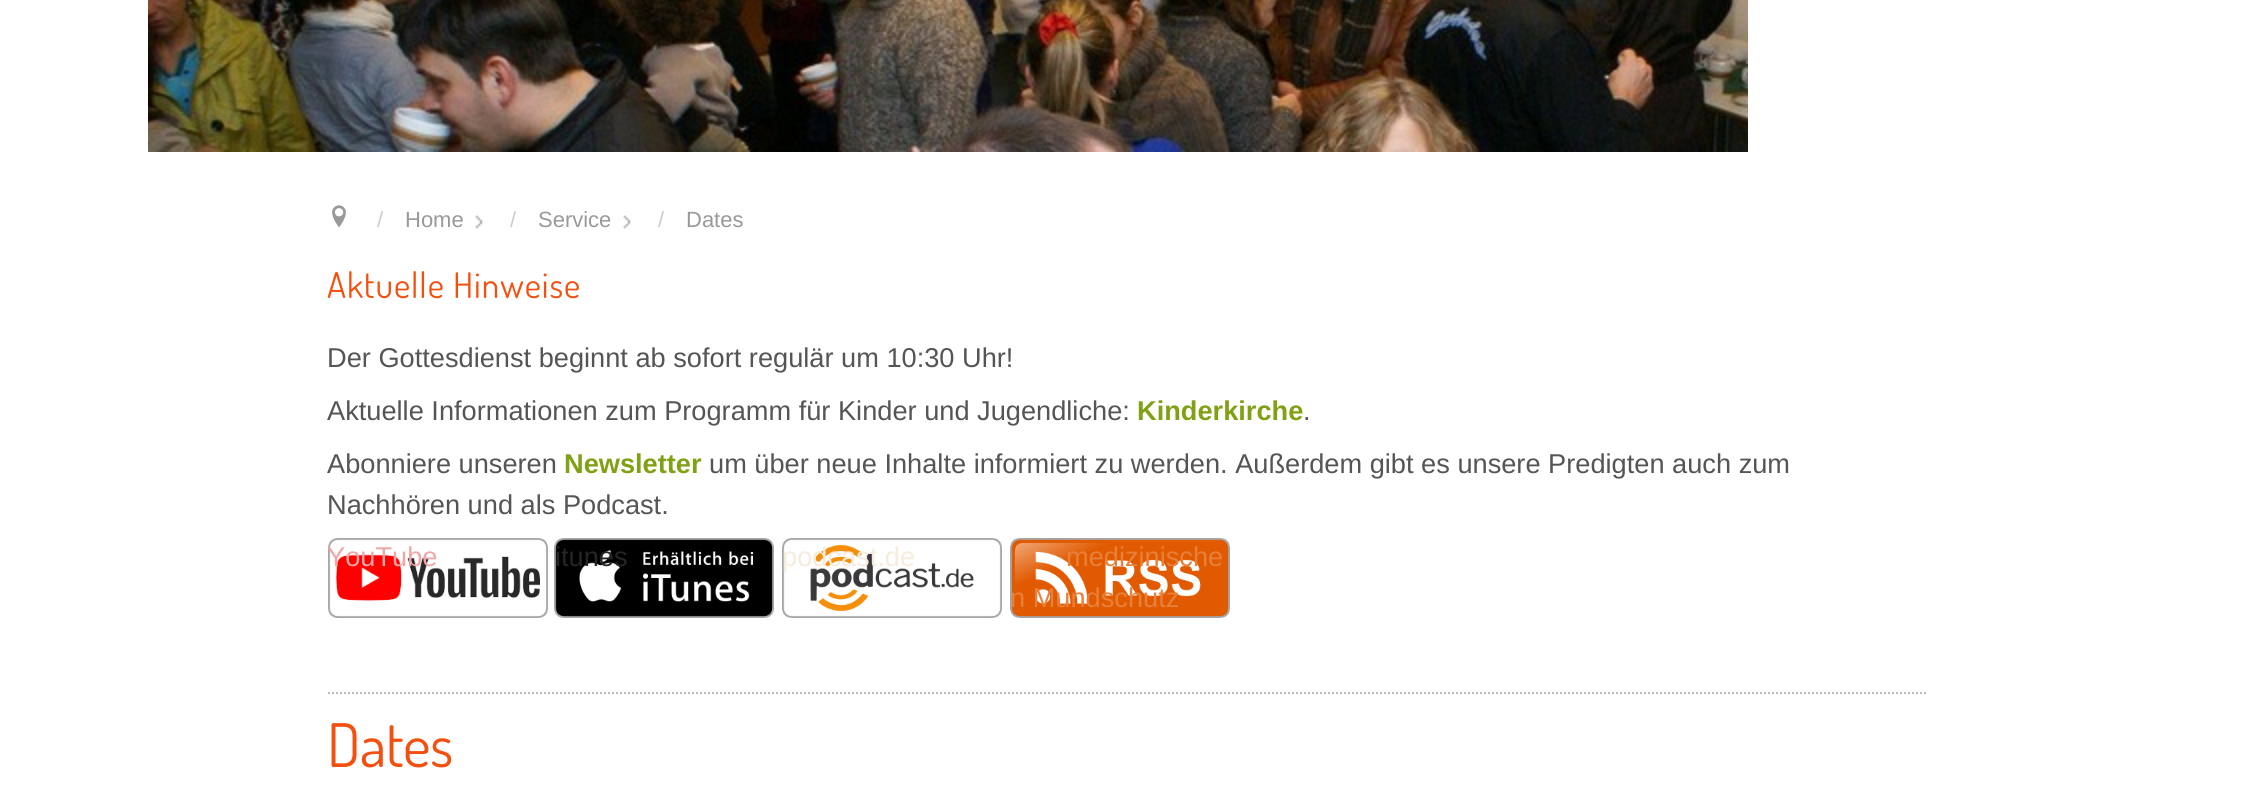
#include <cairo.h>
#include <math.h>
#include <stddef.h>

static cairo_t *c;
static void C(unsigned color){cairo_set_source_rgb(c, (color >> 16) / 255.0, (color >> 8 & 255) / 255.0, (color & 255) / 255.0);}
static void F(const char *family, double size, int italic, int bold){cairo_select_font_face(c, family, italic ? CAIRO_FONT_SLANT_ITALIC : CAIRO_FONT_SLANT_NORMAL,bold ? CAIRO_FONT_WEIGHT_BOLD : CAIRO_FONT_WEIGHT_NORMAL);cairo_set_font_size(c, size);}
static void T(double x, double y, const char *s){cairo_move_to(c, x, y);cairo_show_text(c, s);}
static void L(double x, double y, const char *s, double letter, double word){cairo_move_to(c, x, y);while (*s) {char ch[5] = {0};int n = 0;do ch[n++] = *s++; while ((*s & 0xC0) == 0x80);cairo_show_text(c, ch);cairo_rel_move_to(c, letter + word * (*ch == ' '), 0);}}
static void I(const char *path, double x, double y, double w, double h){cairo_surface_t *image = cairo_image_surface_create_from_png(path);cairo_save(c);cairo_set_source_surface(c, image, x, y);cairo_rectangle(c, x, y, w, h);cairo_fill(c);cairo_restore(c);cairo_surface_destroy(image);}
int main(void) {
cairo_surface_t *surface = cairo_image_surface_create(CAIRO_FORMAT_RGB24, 2253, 804);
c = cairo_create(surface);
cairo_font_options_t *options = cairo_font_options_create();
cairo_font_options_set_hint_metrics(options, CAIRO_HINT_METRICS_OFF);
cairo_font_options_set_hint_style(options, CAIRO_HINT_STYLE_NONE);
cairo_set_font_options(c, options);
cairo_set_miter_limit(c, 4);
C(0xffffff);
cairo_paint(c);
I("1.png",148,0,1600,152);
I("2.png",332,205,14,23);
F("Liberation Sans",22,0,0);
C(0xcccccc);
T(377,227,"/");
C(0x999999);
T(405,227,"Home");
I("3.png",475,215,8,14);
C(0xcccccc);
T(510,227,"/");
C(0x999999);
T(538,227,"Service");
I("3.png",623,215,8,14);
C(0xcccccc);
T(658,227,"/");
C(0x999999);
T(686,227,"Dates");
F("Dosis",35.25,0,0);
C(0xf44f0e);
L(327,298,"Aktuelle Hinweise",1,0);
F("Liberation Sans",27.2,0,0);
C(0x555555);
T(327,367,"Der Gottesdienst beginnt ab sofort regulär um 10:30 Uhr!");
T(327,420,"Aktuelle Informationen zum Programm für Kinder und Jugendliche:");
F("Liberation Sans",27.2,0,1);
C(0x80a114);
T(1137,420,"Kinderkirche");
F("Liberation Sans",27.2,0,0);
C(0x555555);
T(1303,420,".");
T(327,473,"Abonniere unseren");
F("Liberation Sans",27.2,0,1);
C(0x80a114);
T(564,473,"Newsletter");
F("Liberation Sans",27.2,0,0);
C(0x555555);
T(709,473,"um über neue Inhalte informiert zu werden. Außerdem gibt es unsere Predigten auch zum");
T(327,514,"Nachhören und als Podcast.");
I("4.png",328,538,220,80);
C(0xefa6a6);
T(327,566,"YouTube");
I("5.png",554,538,220,80);
C(0x252525);
T(555,566,"itunes");
I("6.png",782,538,220,80);
C(0xf6ecde);
T(782,566,"podcast.de");
I("7.png",1010,538,220,80);
C(0xe7803b);
T(1066,566,"medizinische");
T(1010,607,"n Mundschutz");
cairo_new_path(c);
cairo_move_to(c,328,693);
cairo_line_to(c,1928,693);
C(0xbbbbbb);
cairo_set_dash(c,(double[]){2,2},2,0);
cairo_stroke(c);
F("Dosis",60,0,0);
C(0xf44f0e);
L(327,767,"Dates",-.5,0);
cairo_surface_write_to_png(surface, "o.png");
cairo_font_options_destroy(options);
cairo_destroy(c);
cairo_surface_destroy(surface);
return 0;
}
